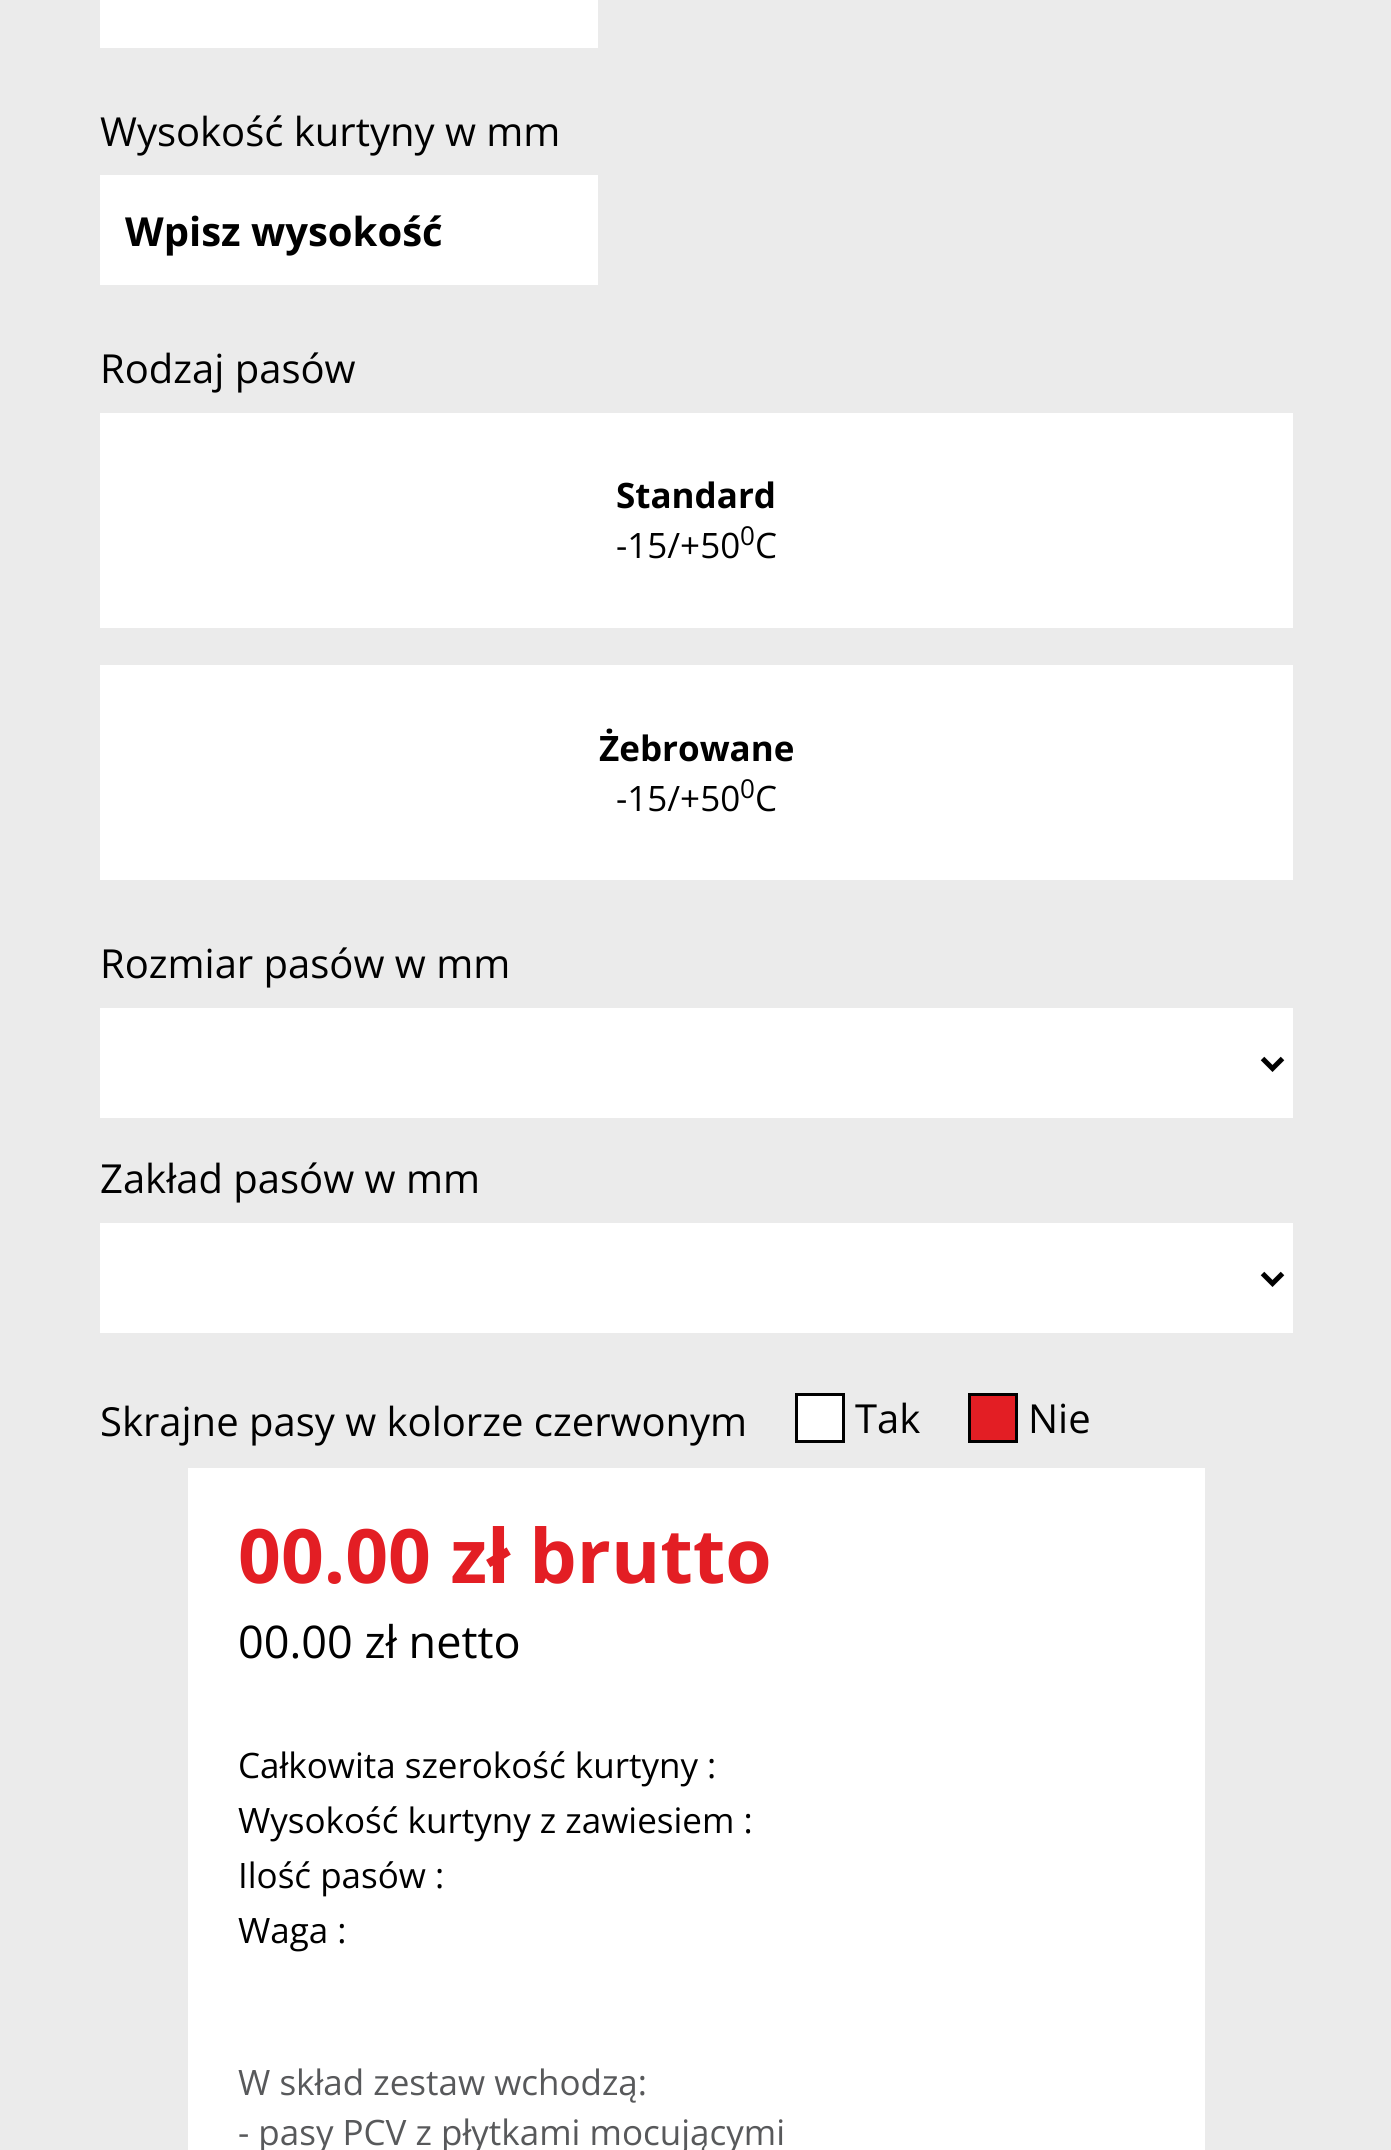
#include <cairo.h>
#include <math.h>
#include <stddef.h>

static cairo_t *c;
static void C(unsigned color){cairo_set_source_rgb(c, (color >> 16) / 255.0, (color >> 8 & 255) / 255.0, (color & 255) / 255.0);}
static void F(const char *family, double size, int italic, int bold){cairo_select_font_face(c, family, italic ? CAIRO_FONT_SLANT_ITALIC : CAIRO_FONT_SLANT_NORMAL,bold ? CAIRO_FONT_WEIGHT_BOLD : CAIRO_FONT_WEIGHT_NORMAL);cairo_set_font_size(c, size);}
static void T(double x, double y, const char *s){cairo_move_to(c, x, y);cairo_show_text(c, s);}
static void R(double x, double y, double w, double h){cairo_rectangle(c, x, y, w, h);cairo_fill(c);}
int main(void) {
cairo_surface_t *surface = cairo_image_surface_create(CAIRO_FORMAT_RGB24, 1391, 2150);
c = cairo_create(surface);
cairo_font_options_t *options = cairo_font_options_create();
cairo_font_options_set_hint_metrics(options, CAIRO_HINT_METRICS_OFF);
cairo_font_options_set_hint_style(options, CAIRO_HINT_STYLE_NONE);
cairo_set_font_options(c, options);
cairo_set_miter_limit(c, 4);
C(0xebebeb);
cairo_paint(c);
C(0xffffff);
R(100,0,498,48);
F("Open Sans",40,0,0);
C(0x000000);
T(100,146,"Wysokość kurtyny w mm");
C(0xffffff);
R(100,175,498,110);
F("Open Sans",40,0,1);
C(0x000000);
T(125,246,"Wpisz wysokość");
F("Open Sans",40,0,0);
T(100,383,"Rodzaj pasów");
C(0xffffff);
R(100,413,1193,215);
F("Open Sans",35,0,1);
C(0x000000);
T(616,508,"Standard");
F("Open Sans",35,0,0);
T(616,558,"-15/+50");
F("Open Sans",26,0,0);
T(740,545,"0");
F("Open Sans",35,0,0);
T(755,558,"C");
C(0xffffff);
R(100,665,1193,215);
F("Open Sans",35,0,1);
C(0x000000);
T(599,761,"Żebrowane");
F("Open Sans",35,0,0);
T(616,811,"-15/+50");
F("Open Sans",26,0,0);
T(740,798,"0");
F("Open Sans",35,0,0);
T(755,811,"C");
F("Open Sans",40,0,0);
T(100,978,"Rozmiar pasów w mm");
C(0xffffff);
R(100,1008,1193,110);
cairo_new_path(c);
cairo_move_to(c,1262.5,1058.5);
cairo_line_to(c,1272.5,1068.5);
cairo_line_to(c,1282.5,1058.5);
C(0x000000);
cairo_set_line_width(c,5);
cairo_stroke(c);
T(100,1193,"Zakład pasów w mm");
C(0xffffff);
R(100,1223,1193,110);
cairo_new_path(c);
cairo_move_to(c,1262.5,1273.5);
cairo_line_to(c,1272.5,1283.5);
cairo_line_to(c,1282.5,1273.5);
C(0x000000);
cairo_stroke(c);
T(100,1436,"Skrajne pasy w kolorze czerwonym");
C(0xffffff);
cairo_rectangle(c,796.5,1394.5,47,47);
cairo_fill_preserve(c);
C(0x000000);
cairo_set_line_width(c,3);
cairo_stroke(c);
T(855,1433,"Tak");
C(0xe31e24);
cairo_rectangle(c,969.5,1394.5,47,47);
cairo_fill_preserve(c);
C(0x000000);
cairo_stroke(c);
T(1028,1433,"Nie");
C(0xffffff);
R(188,1468,1017,682);
F("Open Sans",75,0,1);
C(0xe31e24);
T(238,1583,"00.00 zł brutto");
F("Open Sans",45,0,0);
C(0x000000);
T(238,1658,"00.00 zł netto");
F("Open Sans",35,0,0);
T(238,1778,"Całkowita szerokość kurtyny :");
T(238,1833,"Wysokość kurtyny z zawiesiem :");
T(238,1888,"Ilość pasów :");
T(238,1943,"Waga :");
C(0x58595b);
T(238,2095,"W skład zestaw wchodzą:");
T(238,2145,"- pasy PCV z płytkami mocującymi");
cairo_surface_write_to_png(surface, "o.png");
cairo_font_options_destroy(options);
cairo_destroy(c);
cairo_surface_destroy(surface);
return 0;
}
